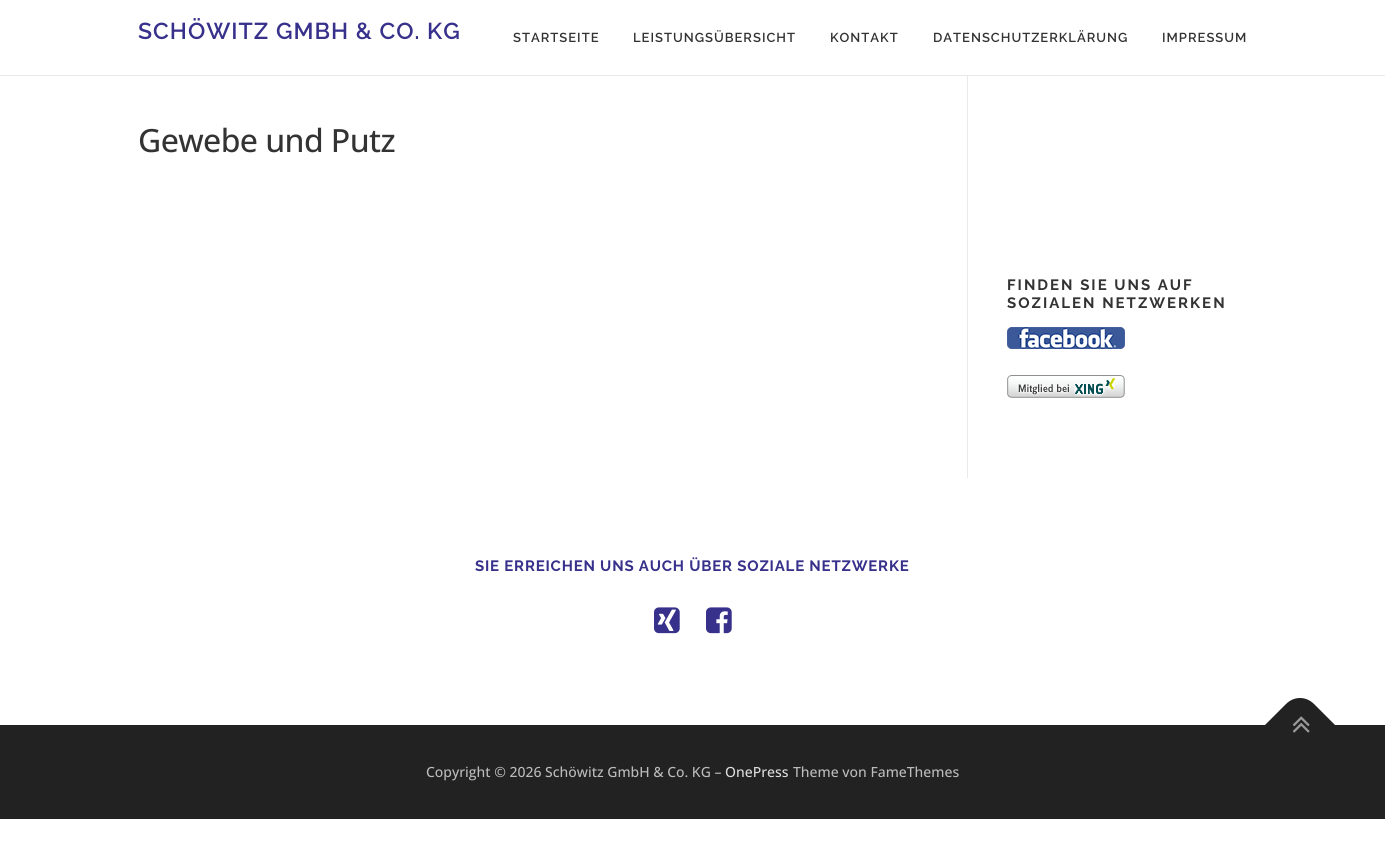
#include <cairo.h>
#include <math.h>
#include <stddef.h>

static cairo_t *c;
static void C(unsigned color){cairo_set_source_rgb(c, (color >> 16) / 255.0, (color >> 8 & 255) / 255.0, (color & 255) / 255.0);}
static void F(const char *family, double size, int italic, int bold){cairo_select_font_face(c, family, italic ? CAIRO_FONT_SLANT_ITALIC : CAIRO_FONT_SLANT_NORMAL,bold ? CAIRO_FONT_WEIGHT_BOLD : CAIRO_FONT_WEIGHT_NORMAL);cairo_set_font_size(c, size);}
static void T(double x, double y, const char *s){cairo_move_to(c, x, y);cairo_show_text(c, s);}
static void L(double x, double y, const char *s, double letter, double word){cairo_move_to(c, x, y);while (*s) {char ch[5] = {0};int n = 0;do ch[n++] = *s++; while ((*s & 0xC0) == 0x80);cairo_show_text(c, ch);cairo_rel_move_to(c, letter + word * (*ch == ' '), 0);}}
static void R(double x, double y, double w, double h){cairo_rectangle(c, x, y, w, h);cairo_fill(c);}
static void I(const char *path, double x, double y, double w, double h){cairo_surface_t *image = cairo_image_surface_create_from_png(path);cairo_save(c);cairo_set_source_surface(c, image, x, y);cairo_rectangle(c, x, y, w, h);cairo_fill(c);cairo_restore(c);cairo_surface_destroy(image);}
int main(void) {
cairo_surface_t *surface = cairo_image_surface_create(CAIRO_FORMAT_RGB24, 1385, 854);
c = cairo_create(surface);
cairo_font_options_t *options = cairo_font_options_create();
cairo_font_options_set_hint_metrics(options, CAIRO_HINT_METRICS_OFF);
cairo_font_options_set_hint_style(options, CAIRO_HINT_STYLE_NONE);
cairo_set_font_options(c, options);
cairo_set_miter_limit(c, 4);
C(0xffffff);
cairo_paint(c);
F("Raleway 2 Thin",23,0,0);
C(0x37318b);
L(138,39,"SCHÖWITZ GMBH & CO. KG",1,0);
F("Raleway 2 Thin",13,0,0);
C(0x333333);
L(513,42,"STARTSEITE",1,0);
L(633,42,"LEISTUNGSÜBERSICHT",1,0);
L(830,42,"KONTAKT",1,0);
L(933,42,"DATENSCHUTZERKLÄRUNG",1,0);
L(1162,42,"IMPRESSUM",1,0);
C(0xe9e9e9);
R(0,75,1385,1);
F("Open Sans Medium",32,0,0);
C(0x333333);
L(138,152,"Gewebe und Putz",-.6,0);
C(0xe9e9e9);
R(967,76,1,402);
F("Raleway Thin",15,0,0);
C(0x333333);
L(1007,290,"FINDEN SIE UNS AUF",2,0);
L(1007,308,"SOZIALEN NETZWERKEN",2,0);
I("1.png",1007,327,118,22);
I("2.png",1007,375,118,23);
C(0x37318b);
L(475,571,"SIE ERREICHEN UNS AUCH ÜBER SOZIALE NETZWERKE",.8,0);
I("3.png",654,607,26,27);
I("4.png",706,607,26,27);
C(0x222222);
R(0,725,1385,94);
cairo_new_path(c);
cairo_move_to(c,1265,725);
cairo_line_to(c,1286,704);
cairo_curve_to(c,1294,696,1306,696,1314,704);
cairo_line_to(c,1335,725);
cairo_line_to(c,1300,761);
cairo_close_path(c);
cairo_fill(c);
I("5.png",1292,716,18,17);
F("Open Sans Medium",14,0,0);
C(0xbbbbbb);
T(426,777,"Copyright © 2026 Schöwitz GmbH & Co. KG –");
C(0xdddddd);
T(725,777,"OnePress");
C(0xbbbbbb);
T(793,777,"Theme von FameThemes");
cairo_surface_write_to_png(surface, "o.png");
cairo_font_options_destroy(options);
cairo_destroy(c);
cairo_surface_destroy(surface);
return 0;
}
